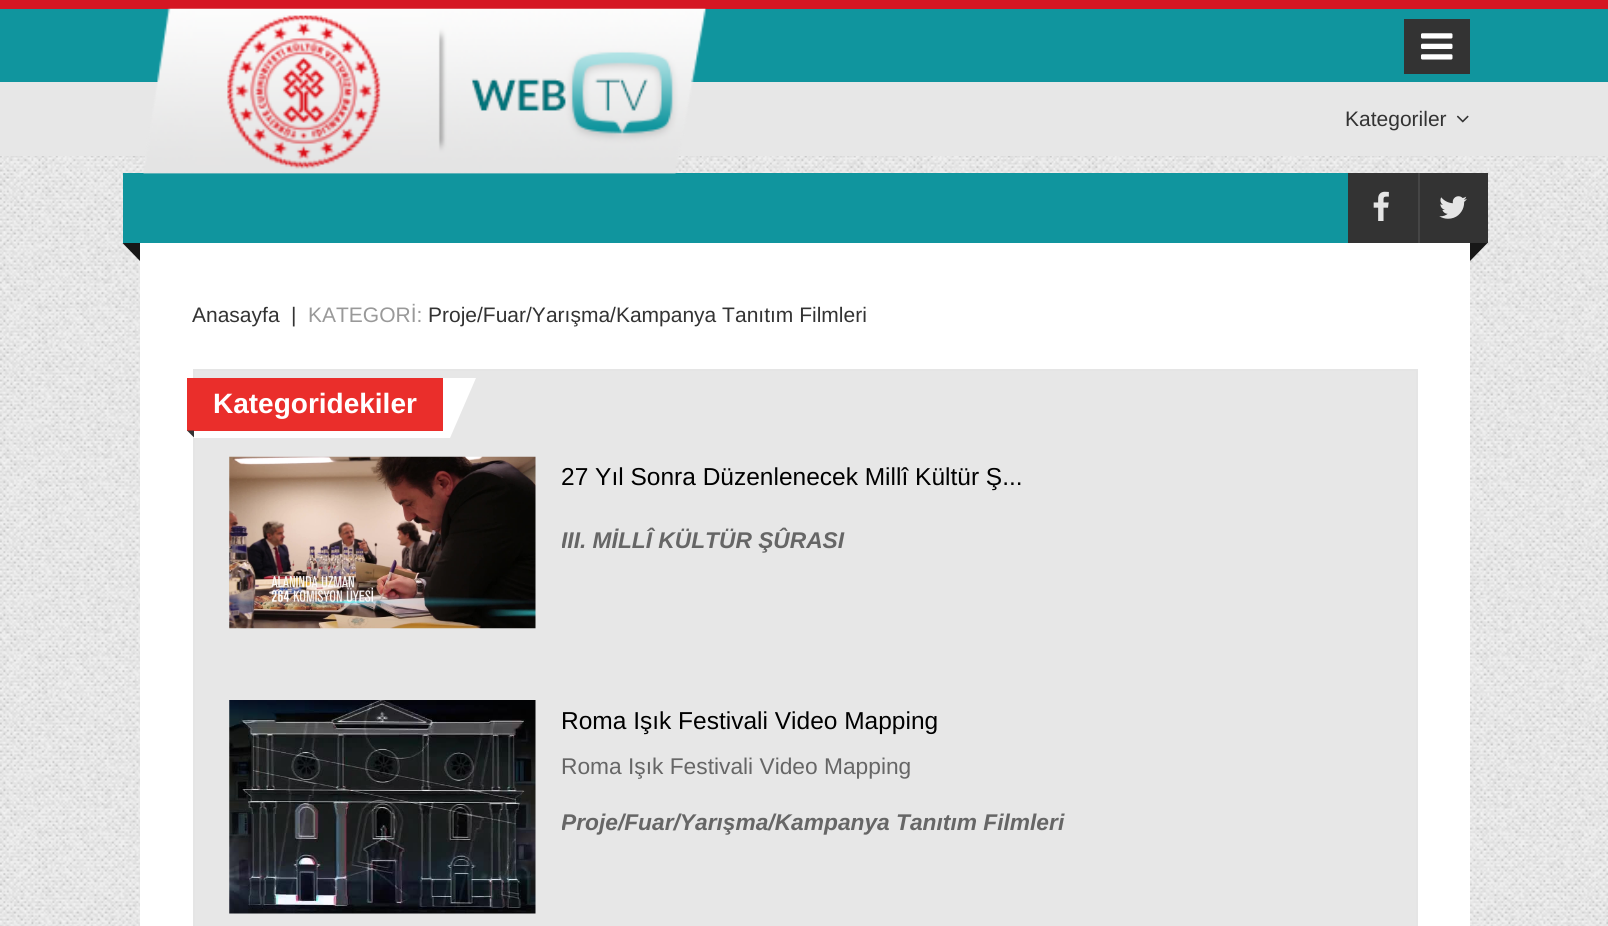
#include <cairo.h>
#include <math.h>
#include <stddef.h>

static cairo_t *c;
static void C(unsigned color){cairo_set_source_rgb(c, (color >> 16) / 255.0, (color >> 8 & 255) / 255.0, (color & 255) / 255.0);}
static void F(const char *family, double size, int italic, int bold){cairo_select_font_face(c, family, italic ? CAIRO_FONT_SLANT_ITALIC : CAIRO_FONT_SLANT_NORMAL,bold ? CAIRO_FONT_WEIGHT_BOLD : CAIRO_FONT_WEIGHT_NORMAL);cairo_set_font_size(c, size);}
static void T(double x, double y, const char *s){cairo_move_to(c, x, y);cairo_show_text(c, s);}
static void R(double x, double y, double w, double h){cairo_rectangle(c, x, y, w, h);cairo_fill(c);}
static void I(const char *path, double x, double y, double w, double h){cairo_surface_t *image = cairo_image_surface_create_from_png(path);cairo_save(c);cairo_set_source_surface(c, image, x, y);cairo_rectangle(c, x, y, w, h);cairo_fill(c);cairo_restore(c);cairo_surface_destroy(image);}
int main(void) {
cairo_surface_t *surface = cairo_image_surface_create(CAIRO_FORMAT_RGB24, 1608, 926);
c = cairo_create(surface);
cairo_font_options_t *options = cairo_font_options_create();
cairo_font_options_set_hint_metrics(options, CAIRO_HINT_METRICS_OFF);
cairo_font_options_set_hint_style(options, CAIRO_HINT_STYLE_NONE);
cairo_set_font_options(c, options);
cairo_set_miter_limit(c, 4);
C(0xffffff);
cairo_paint(c);
C(0x10959e);
R(0,9,1608,73);
C(0xd51623);
R(0,0,1608,9);
C(0xe7e7e7);
R(0,82,1608,74);
I("4.png",0,156,1608,770);
C(0x10959e);
R(123,173,1225,70);
I("1.png",143,8,564,166);
C(0x333333);
R(1404,19,66,55);
I("2.png",1421,33,32,27);
F("Liberation Sans",21,0,0);
T(1345,126,"Kategoriler");
I("3.png",1456,115,13,8);
C(0xffffff);
R(140,243,1330,683);
C(0x171717);
cairo_new_path(c);
cairo_move_to(c,122.5,243);
cairo_line_to(c,140,243);
cairo_line_to(c,140,261);
cairo_close_path(c);
cairo_fill(c);
C(0x333333);
R(1348,173,70,70);
I("5.png",1373,191,16,30);
R(1420,173,68,70);
C(0x454545);
R(1418,173,2,70);
I("6.png",1439,196,28,23);
C(0x171717);
cairo_new_path(c);
cairo_move_to(c,1470,243);
cairo_line_to(c,1487.5,243);
cairo_line_to(c,1470,261);
cairo_close_path(c);
cairo_fill(c);
C(0x333333);
T(192,322,"Anasayfa");
T(291,322,"|");
C(0x999999);
T(308,322,"KATEGORİ:");
C(0x333333);
T(428,322,"Proje/Fuar/Yarışma/Kampanya Tanıtım Filmleri");
C(0xe7e7e7);
cairo_rectangle(c,194,370,1223,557);
cairo_fill_preserve(c);
C(0xe5e5e5);
cairo_stroke(c);
C(0xea2e2b);
R(187,378,256,53);
C(0xffffff);
R(443,378,7,60);
R(187,431,263,7);
F("Liberation Sans",28,0,1);
T(213,413,"Kategoridekiler");
cairo_new_path(c);
cairo_move_to(c,450,378);
cairo_line_to(c,476,378);
cairo_line_to(c,450,438);
cairo_close_path(c);
cairo_fill(c);
C(0x333333);
cairo_new_path(c);
cairo_move_to(c,187,430.5);
cairo_line_to(c,194,430.5);
cairo_line_to(c,194,437.5);
cairo_close_path(c);
cairo_fill(c);
I("7.png",229,456,307,173);
F("Liberation Sans",24.5,0,0);
C(0x000000);
T(561,485,"27 Yıl Sonra Düzenlenecek Millî Kültür Ş...");
cairo_save(c);
cairo_rectangle(c,562,457,819,103);
cairo_clip(c);
F("Liberation Sans",22.75,1,1);
C(0x666666);
T(561,548,"III. MİLLÎ KÜLTÜR ŞÛRASI");
cairo_restore(c);
I("8.png",229,700,307,214);
T(561,729,"Roma Işık Festivali Video Mapping");
F("Liberation Sans",22.75,0,0);
C(0x666666);
T(561,774,"Roma Işık Festivali Video Mapping");
cairo_save(c);
cairo_rectangle(c,562,700,819,142);
cairo_clip(c);
F("Liberation Sans",22.75,1,1);
T(561,830,"Proje/Fuar/Yarışma/Kampanya Tanıtım Filmleri");
cairo_restore(c);
cairo_surface_write_to_png(surface, "o.png");
cairo_font_options_destroy(options);
cairo_destroy(c);
cairo_surface_destroy(surface);
return 0;
}
